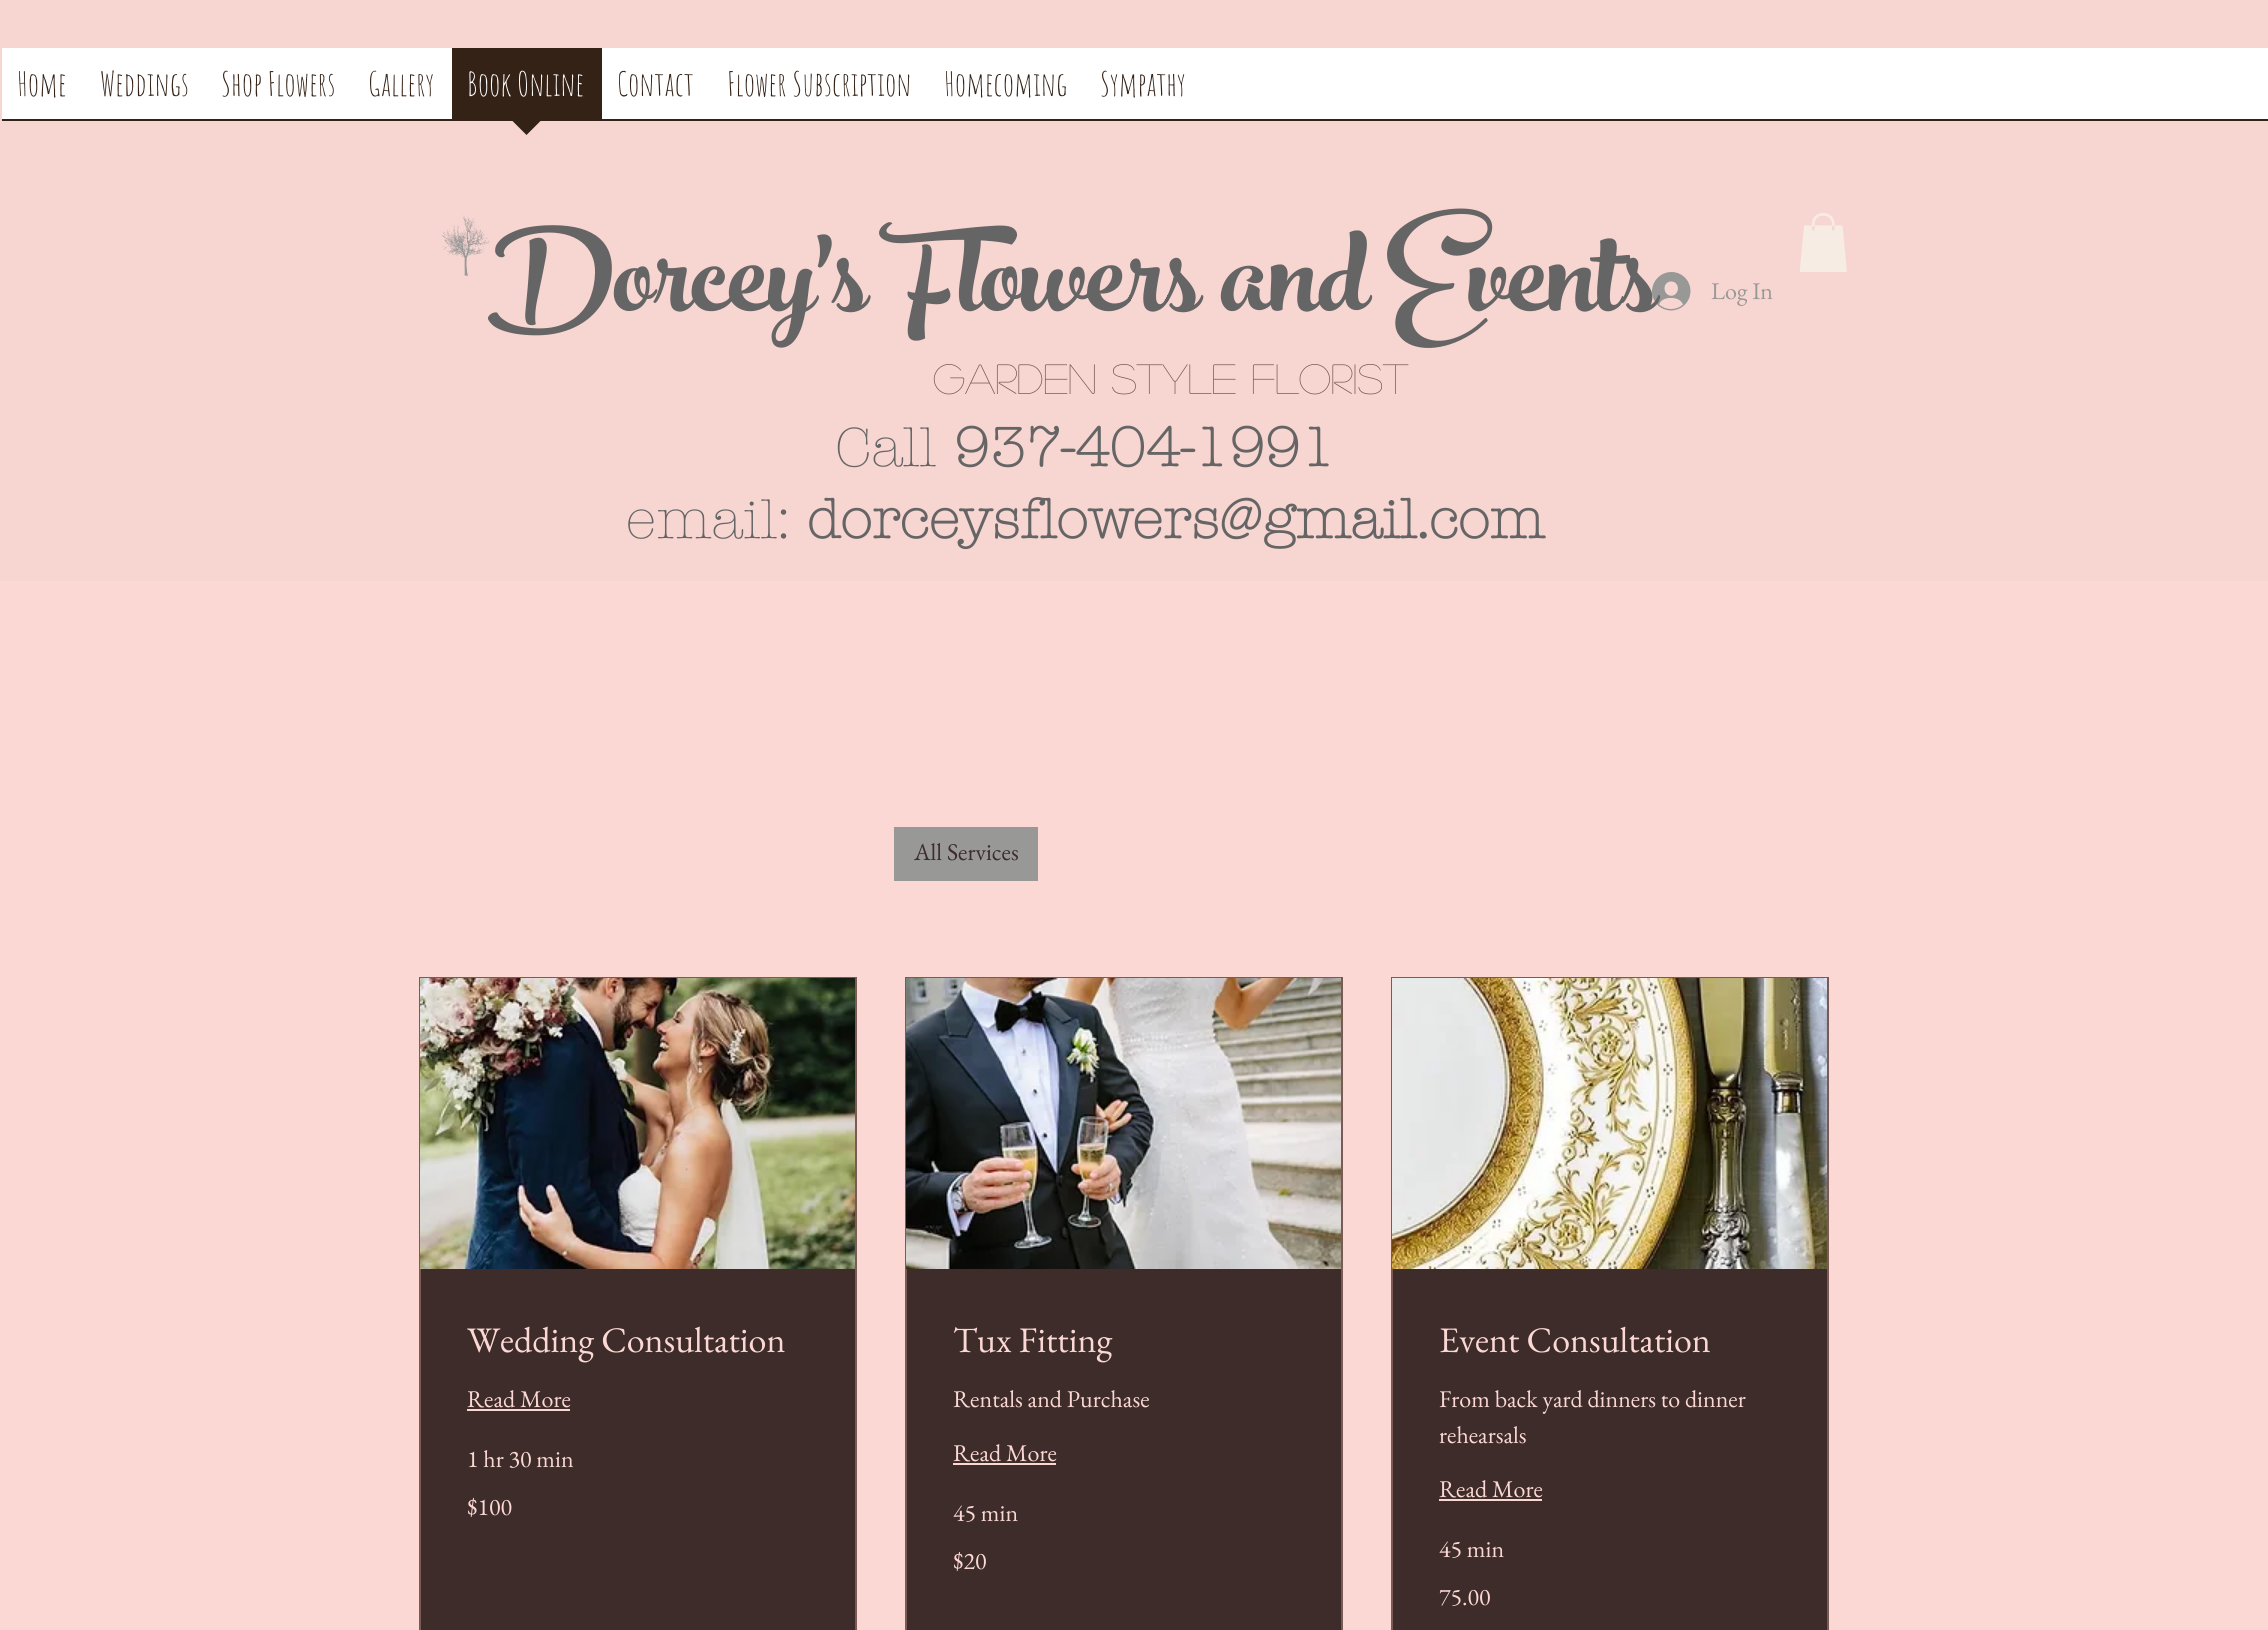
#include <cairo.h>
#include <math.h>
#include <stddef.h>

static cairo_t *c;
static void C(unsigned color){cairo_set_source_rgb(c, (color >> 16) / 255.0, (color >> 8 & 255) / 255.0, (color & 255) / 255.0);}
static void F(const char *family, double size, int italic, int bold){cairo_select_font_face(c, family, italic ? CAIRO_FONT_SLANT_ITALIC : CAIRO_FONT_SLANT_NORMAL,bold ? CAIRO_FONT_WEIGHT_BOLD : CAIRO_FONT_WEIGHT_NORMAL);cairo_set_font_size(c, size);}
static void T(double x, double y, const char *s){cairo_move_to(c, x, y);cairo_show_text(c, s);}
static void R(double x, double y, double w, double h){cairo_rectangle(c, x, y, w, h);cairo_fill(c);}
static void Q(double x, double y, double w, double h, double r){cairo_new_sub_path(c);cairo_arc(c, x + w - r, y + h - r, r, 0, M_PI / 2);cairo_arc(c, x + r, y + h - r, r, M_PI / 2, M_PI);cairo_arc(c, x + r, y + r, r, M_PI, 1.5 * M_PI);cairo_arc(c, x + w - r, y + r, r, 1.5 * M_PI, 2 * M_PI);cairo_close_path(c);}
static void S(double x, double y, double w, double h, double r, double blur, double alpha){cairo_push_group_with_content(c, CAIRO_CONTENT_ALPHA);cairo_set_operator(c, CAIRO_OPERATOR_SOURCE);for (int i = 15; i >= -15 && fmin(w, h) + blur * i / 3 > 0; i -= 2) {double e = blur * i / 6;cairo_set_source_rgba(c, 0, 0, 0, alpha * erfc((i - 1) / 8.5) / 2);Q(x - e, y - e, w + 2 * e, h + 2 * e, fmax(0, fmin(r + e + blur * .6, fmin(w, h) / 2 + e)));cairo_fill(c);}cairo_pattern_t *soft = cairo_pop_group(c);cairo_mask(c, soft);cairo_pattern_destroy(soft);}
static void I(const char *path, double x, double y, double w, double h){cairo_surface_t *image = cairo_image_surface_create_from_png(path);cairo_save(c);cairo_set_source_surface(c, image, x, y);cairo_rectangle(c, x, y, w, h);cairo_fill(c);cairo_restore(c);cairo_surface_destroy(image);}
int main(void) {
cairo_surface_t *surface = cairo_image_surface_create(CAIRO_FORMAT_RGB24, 2268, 1630);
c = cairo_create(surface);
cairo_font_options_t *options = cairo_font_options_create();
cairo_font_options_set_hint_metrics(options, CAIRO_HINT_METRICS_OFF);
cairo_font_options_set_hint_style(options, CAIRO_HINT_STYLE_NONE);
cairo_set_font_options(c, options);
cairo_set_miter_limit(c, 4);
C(0x3d2c2a);
cairo_paint(c);
cairo_save(c);
cairo_set_fill_rule(c,CAIRO_FILL_RULE_EVEN_ODD);
cairo_new_path(c);
cairo_move_to(c,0,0);
cairo_line_to(c,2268,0);
cairo_line_to(c,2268,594);
cairo_line_to(c,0,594);
cairo_close_path(c);
cairo_move_to(c,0,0);
cairo_line_to(c,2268,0);
cairo_line_to(c,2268,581);
cairo_line_to(c,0,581);
cairo_close_path(c);
cairo_clip(c);
C(0x000000);
S(0,0,2268,581,0,4,.7);
cairo_restore(c);
cairo_set_source_rgba(c,0.984,0.847,0.831,0.98);
R(0,0,2268,581);
C(0xffffff);
R(2,48,2266,71);
C(0x342216);
R(2,119,2266,2);
F("Amatic SC",33,0,0);
T(17,96,"Home");
T(100,96,"Weddings");
T(221,96,"Shop Flowers");
T(368,96,"Gallery");
R(452,48,150,71);
C(0xffffff);
T(467,96,"Book Online");
C(0x342216);
cairo_new_path(c);
cairo_move_to(c,510,118.5);
cairo_line_to(c,543,118.5);
cairo_line_to(c,526.5,135);
cairo_close_path(c);
cairo_fill(c);
T(617,96,"Contact");
T(727,96,"Flower Subscription");
T(944,96,"Homecoming");
T(1100,96,"Sympathy");
I("1.png",441,215,49,61);
I("3.png",1652,272,39,39);
F("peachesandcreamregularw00",171,0,0);
C(0x656565);
T(488,311,"Dorcey's Flowers and Events");
I("2.png",1799,213,48,59);
F("EB Garamond",24,0,0);
C(0x989897);
T(1711,299,"Log In");
F("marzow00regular",42,0,0);
C(0x7b5955);
T(933,394,"Garden Style Florist");
F("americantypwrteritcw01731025 Light",55.5,0,0);
C(0x656565);
T(835,466,"Call");
F("americantypwrteritcw01731025",55.5,0,1);
T(954,466,"937-404-1991");
F("americantypwrteritcw01731025 Light",55.5,0,0);
T(626,538,"email:");
F("americantypwrteritcw01731025",55.5,0,1);
T(807,538,"dorceysflowers@gmail.com");
C(0xfbd8d4);
R(0,581,2268,1049);
C(0x989897);
R(894,827,144,54);
F("EB Garamond",24,0,0);
C(0x3d2c2a);
T(914,860,"All Services");
R(421,1269,434,361);
cairo_rectangle(c,420,978,436,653);
C(0x7b5955);
cairo_stroke(c);
I("4.png",420,978,435,291);
F("EB Garamond",36,0,0);
C(0xfbd8d4);
T(467,1352,"Wedding Consultation");
F("EB Garamond",24,0,0);
T(467,1407,"Read More");
R(467,1409,103,2);
T(467,1467,"1 hr 30 min");
T(467,1515,"$100");
C(0x3d2c2a);
R(907,1269,434,361);
cairo_rectangle(c,906,978,436,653);
C(0x7b5955);
cairo_stroke(c);
I("5.png",906,978,435,291);
F("EB Garamond",36,0,0);
C(0xfbd8d4);
T(953,1352,"Tux Fitting");
F("EB Garamond",24,0,0);
T(953,1407,"Rentals and Purchase");
T(953,1461,"Read More");
R(953,1463,103,2);
T(953,1521,"45 min");
T(953,1569,"$20");
C(0x3d2c2a);
R(1393,1269,434,361);
cairo_rectangle(c,1392,978,436,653);
C(0x7b5955);
cairo_stroke(c);
I("6.png",1392,978,435,291);
F("EB Garamond",36,0,0);
C(0xfbd8d4);
T(1439,1352,"Event Consultation");
F("EB Garamond",24,0,0);
T(1439,1407,"From back yard dinners to dinner");
T(1439,1443,"rehearsals");
T(1439,1497,"Read More");
R(1439,1499,103,2);
T(1439,1557,"45 min");
T(1439,1605,"75.00");
cairo_surface_write_to_png(surface, "o.png");
cairo_font_options_destroy(options);
cairo_destroy(c);
cairo_surface_destroy(surface);
return 0;
}
